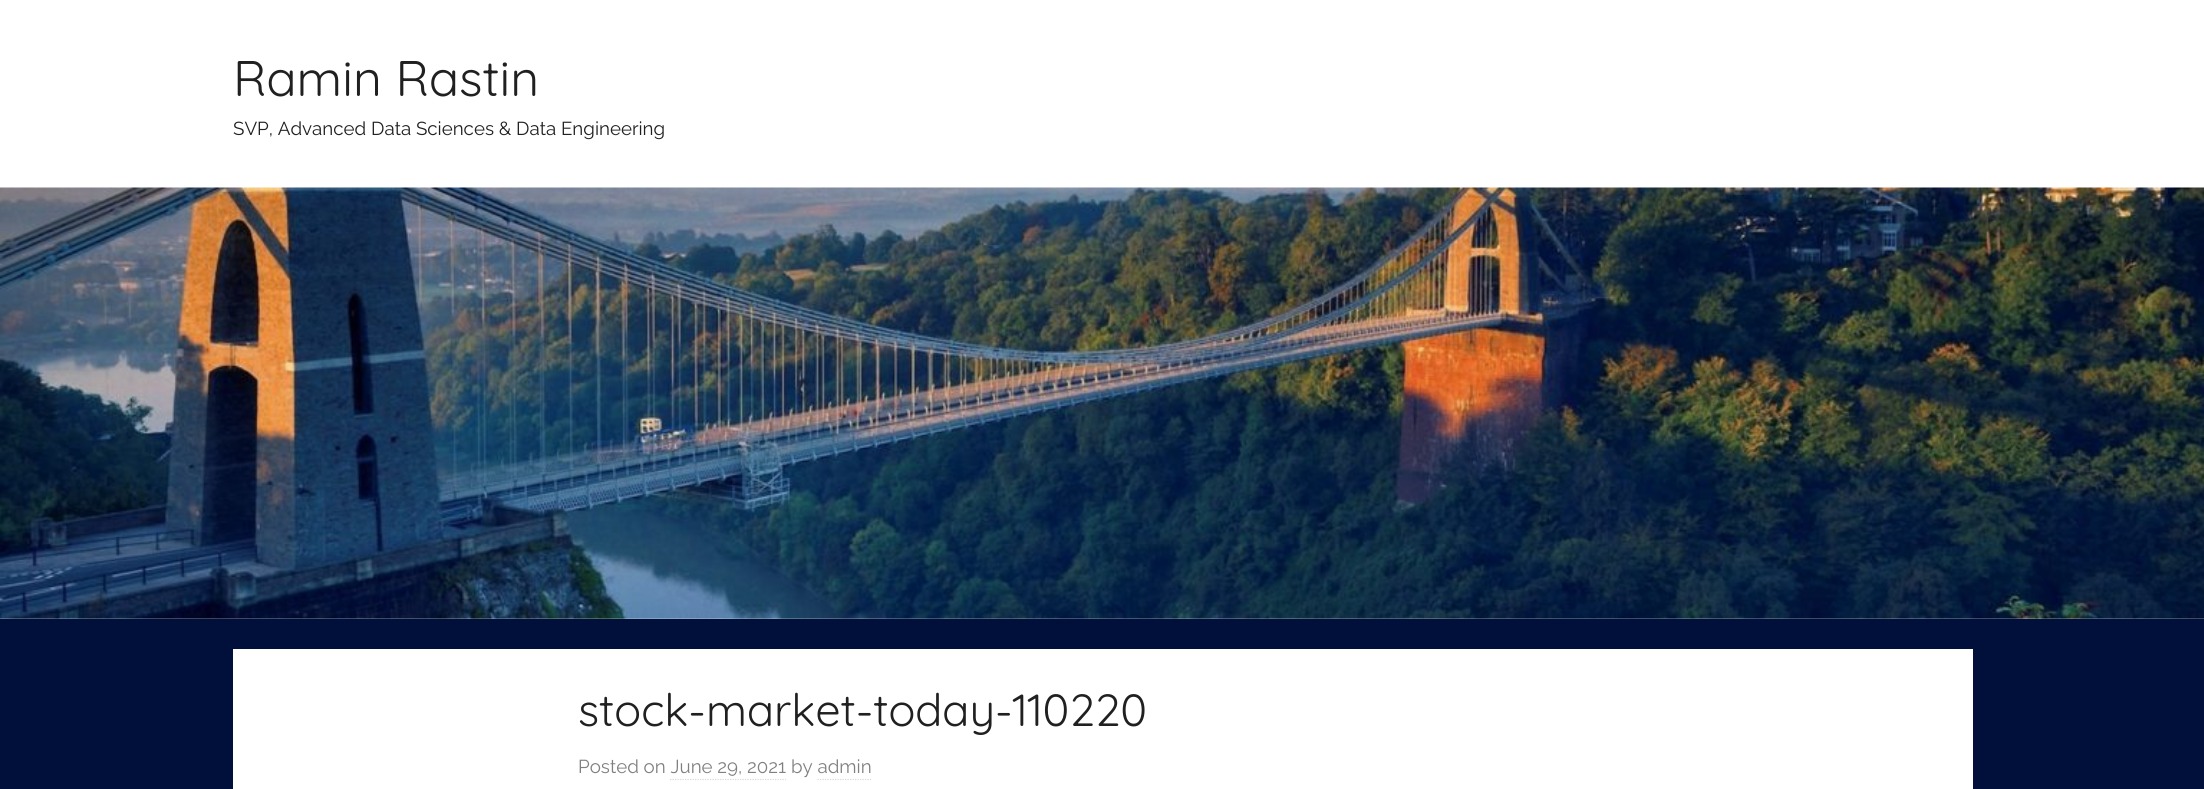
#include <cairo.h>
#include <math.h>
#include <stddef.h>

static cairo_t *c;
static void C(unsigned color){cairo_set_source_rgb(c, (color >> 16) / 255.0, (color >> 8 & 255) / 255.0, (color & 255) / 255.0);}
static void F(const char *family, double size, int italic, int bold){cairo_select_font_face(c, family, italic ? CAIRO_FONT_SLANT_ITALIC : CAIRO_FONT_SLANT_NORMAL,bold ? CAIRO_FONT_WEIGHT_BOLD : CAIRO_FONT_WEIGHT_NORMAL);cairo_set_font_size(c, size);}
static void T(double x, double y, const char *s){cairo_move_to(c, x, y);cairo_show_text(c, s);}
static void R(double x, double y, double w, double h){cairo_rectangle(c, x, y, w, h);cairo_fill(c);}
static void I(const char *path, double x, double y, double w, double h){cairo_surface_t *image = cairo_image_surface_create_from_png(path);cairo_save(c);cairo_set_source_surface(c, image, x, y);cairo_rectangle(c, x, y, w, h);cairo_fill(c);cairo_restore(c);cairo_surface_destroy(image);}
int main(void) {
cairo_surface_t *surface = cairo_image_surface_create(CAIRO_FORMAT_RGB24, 2204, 789);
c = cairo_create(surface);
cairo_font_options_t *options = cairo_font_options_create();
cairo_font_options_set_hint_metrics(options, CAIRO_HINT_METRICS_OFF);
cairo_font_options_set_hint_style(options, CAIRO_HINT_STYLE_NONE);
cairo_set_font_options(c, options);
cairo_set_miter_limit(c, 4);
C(0x00103a);
cairo_paint(c);
C(0xffffff);
R(0,0,2204,619);
F("Quicksand Light",50,0,0);
C(0x202020);
T(233,96,"Ramin Rastin");
F("Raleway Thin",18.75,0,0);
T(233,135,"SVP, Advanced Data Sciences & Data Engineering");
I("1.png",0,187,2204,432);
C(0xffffff);
R(233,649,1740,140);
F("Quicksand Light",45,0,0);
C(0x202020);
T(578,726,"stock-market-today-110220");
F("Raleway Thin",18.75,0,0);
C(0x808080);
T(578,773,"Posted on June 29, 2021 by admin");
cairo_new_path(c);
cairo_move_to(c,670,779.5);
cairo_line_to(c,786,779.5);
C(0xd9d9d9);
cairo_set_line_width(c,1.2);
cairo_set_dash(c,(double[]){1.25,1.25},2,0);
cairo_stroke(c);
cairo_new_path(c);
cairo_move_to(c,817.5,779.5);
cairo_line_to(c,871,779.5);
cairo_stroke(c);
cairo_surface_write_to_png(surface, "o.png");
cairo_font_options_destroy(options);
cairo_destroy(c);
cairo_surface_destroy(surface);
return 0;
}
